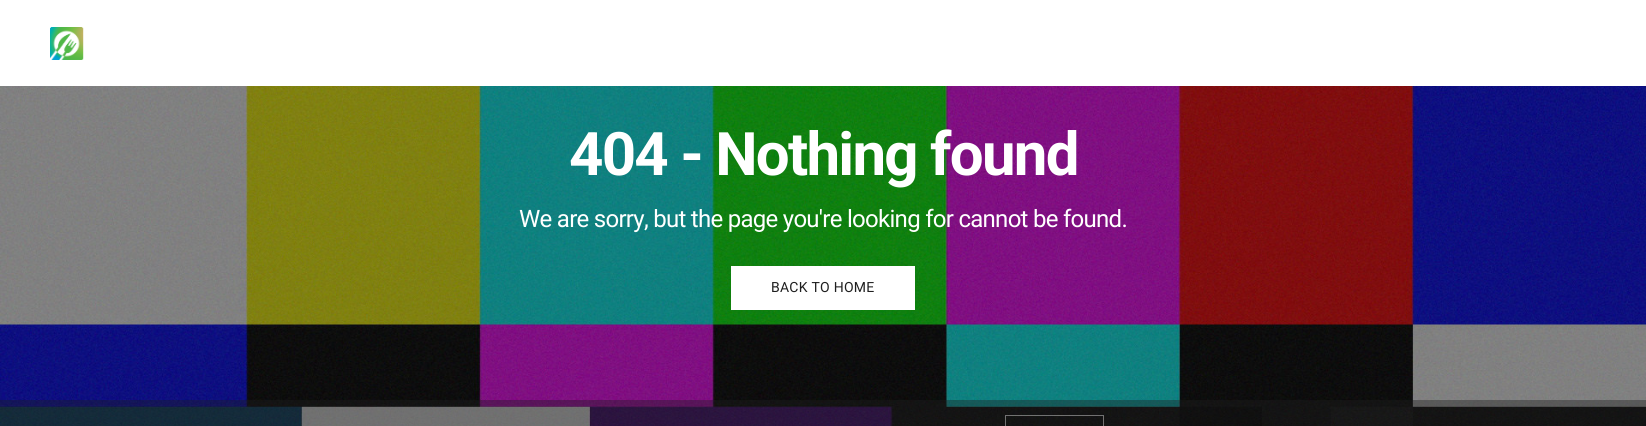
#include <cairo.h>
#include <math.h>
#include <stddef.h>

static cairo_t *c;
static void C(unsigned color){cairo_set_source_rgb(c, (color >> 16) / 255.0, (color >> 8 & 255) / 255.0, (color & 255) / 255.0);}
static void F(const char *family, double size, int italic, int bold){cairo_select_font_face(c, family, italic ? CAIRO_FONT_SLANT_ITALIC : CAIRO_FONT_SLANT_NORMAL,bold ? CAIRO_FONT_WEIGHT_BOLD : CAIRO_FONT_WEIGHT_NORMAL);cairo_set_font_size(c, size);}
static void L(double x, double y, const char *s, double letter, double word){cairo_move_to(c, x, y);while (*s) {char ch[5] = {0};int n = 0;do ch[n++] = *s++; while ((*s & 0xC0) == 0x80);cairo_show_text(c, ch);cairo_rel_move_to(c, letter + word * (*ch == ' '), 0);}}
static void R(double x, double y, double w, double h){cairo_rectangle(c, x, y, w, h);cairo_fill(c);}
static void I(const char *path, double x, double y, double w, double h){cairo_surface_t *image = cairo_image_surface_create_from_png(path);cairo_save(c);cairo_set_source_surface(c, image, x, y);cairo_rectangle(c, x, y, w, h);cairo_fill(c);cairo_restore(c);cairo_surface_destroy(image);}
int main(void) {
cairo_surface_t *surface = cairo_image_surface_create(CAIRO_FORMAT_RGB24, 1646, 426);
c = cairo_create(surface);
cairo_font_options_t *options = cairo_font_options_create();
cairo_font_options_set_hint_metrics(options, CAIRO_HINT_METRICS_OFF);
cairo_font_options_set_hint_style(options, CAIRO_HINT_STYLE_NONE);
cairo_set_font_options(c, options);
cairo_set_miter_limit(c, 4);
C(0xffffff);
cairo_paint(c);
I("1.png",50,27,34,33);
I("2.png",50,27,34,33);
I("3.png",0,86,1646,340);
F("Roboto",60,0,1);
C(0xffffff);
L(569,175,"404 - Nothing found",-1.75,0);
F("Roboto",24,0,0);
L(519,227,"We are sorry, but the page you're looking for cannot be found.",-.72,0);
R(731,266,184,44);
F("Roboto",14,0,0);
C(0x1f1f1f);
L(771,292,"BACK TO HOME",.25,0);
cairo_set_source_rgba(c,0.122,0.122,0.122,0.4);
R(0,400,1646,26);
cairo_rectangle(c,1005.5,415.5,98,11);
cairo_set_source_rgba(c,1,1,1,0.4);
cairo_set_line_width(c,1);
cairo_stroke(c);
cairo_surface_write_to_png(surface, "o.png");
cairo_font_options_destroy(options);
cairo_destroy(c);
cairo_surface_destroy(surface);
return 0;
}
